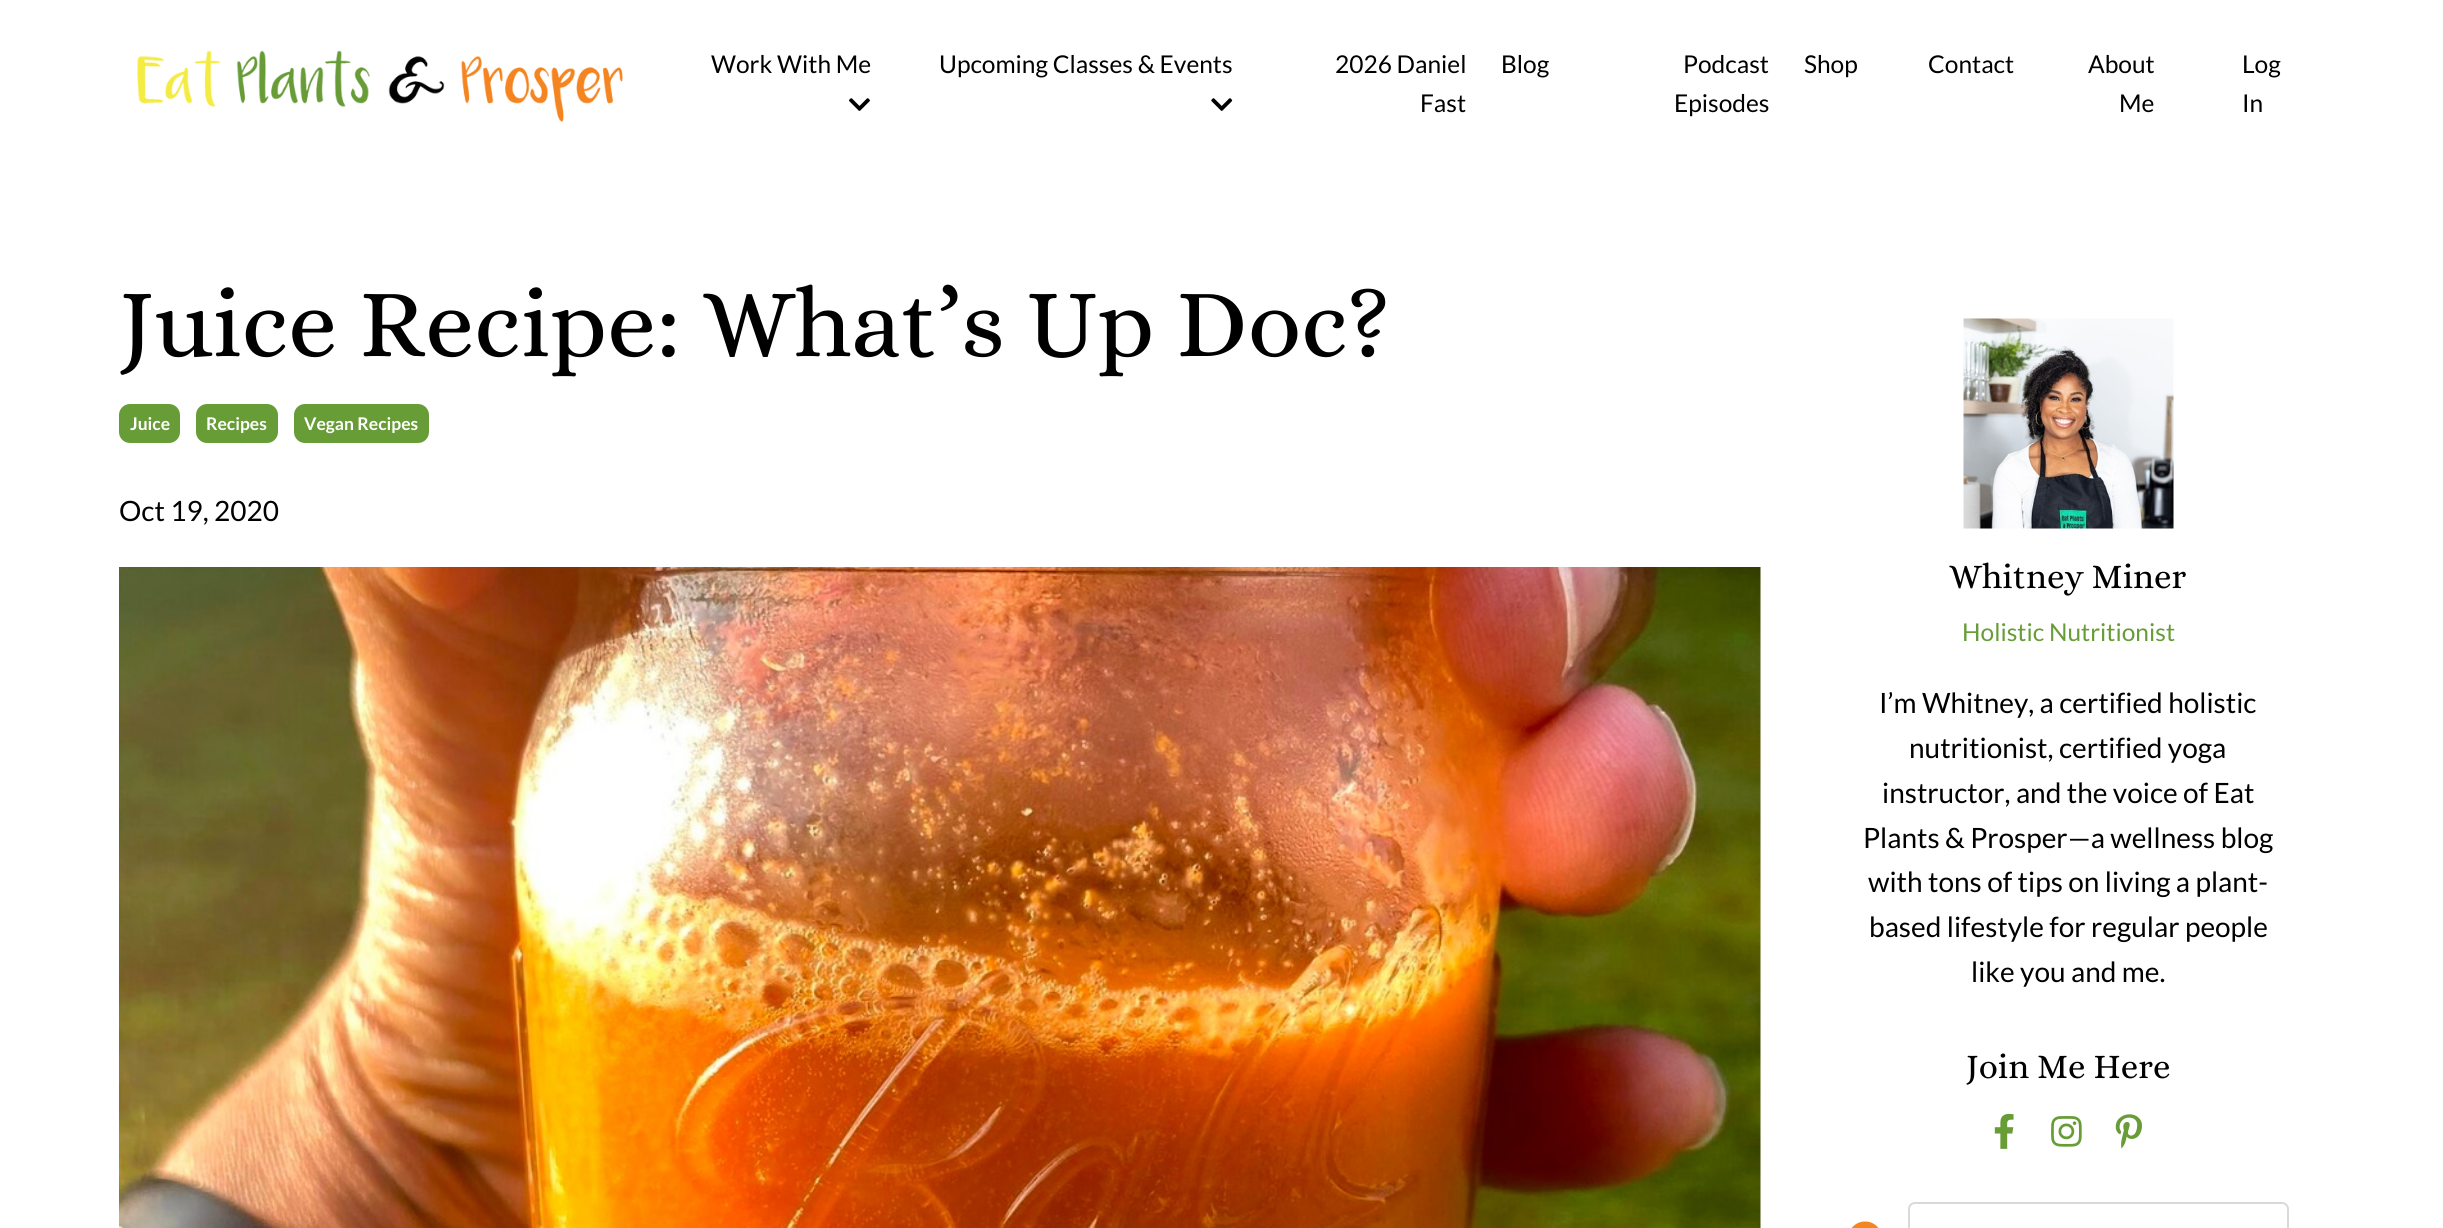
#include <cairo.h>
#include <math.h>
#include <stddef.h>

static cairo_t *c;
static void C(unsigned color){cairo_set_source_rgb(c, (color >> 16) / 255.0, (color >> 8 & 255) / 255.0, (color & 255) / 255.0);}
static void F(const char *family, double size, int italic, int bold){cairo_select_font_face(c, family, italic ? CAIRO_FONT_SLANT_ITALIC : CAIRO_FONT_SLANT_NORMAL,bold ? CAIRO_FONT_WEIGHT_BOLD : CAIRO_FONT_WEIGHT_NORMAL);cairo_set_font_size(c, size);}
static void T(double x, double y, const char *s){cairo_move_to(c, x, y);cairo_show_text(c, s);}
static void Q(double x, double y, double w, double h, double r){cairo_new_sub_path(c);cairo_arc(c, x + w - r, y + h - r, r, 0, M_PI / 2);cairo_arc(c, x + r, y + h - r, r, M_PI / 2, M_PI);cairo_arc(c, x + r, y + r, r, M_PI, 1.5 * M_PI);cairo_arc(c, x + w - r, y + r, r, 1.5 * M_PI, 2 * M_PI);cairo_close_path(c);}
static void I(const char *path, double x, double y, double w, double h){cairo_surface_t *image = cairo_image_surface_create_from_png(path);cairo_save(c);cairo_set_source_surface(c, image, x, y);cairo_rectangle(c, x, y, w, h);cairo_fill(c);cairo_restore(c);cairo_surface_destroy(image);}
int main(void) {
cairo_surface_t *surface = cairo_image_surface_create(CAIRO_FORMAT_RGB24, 2443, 1228);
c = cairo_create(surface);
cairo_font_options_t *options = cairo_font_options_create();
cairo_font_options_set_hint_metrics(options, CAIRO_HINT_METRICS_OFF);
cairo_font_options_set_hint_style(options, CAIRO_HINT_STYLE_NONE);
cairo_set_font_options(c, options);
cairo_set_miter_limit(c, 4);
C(0xffffff);
cairo_paint(c);
I("1.png",137,50,486,73);
F("Lato",24.5,0,0);
C(0x000000);
T(711,73,"Work With Me");
I("2.png",849,98,21,13);
T(939,73,"Upcoming Classes & Events");
I("3.png",1211,98,22,13);
T(1335,73,"2026 Daniel");
T(1420,112,"Fast");
T(1501,73,"Blog");
T(1683,73,"Podcast");
T(1674,112,"Episodes");
T(1804,73,"Shop");
T(1928,73,"Contact");
T(2088,73,"About");
T(2119,112,"Me");
T(2242,73,"Log");
T(2242,112,"In");
F("Alice",98,0,0);
T(119,356,"Juice Recipe: What’s Up Doc?");
C(0x679c36);
Q(119,404,61,39,11);
cairo_fill(c);
F("Lato",17.5,0,1);
C(0xffffff);
T(130,430,"Juice");
C(0x679c36);
Q(196,404,82,39,11);
cairo_fill(c);
C(0xffffff);
T(206,430,"Recipes");
C(0x679c36);
Q(294,404,135,39,11);
cairo_fill(c);
C(0xffffff);
T(304,430,"Vegan Recipes");
F("Lato",28,0,0);
C(0x000000);
T(119,521,"Oct 19, 2020");
I("4.png",119,567,1642,661);
I("5.png",1963,318,211,211);
F("Alice",35,0,0);
T(1949,588,"Whitney Miner");
F("Lato",24.5,0,0);
C(0x679c36);
T(1962,641,"Holistic Nutritionist");
F("Lato",28,0,0);
C(0x000000);
T(1879,713,"I’m Whitney, a certified holistic");
T(1909,758,"nutritionist, certified yoga");
T(1882,803,"instructor, and the voice of Eat");
T(1863,848,"Plants & Prosper—a wellness blog");
T(1868,892,"with tons of tips on living a plant-");
T(1869,937,"based lifestyle for regular people");
T(1971,982,"like you and me.");
F("Alice",35,0,0);
T(1966,1078,"Join Me Here");
I("6.png",1994,1113,20,36);
I("7.png",2051,1116,31,31);
I("8.png",2115,1114,27,35);
I("9.png",1851,1221,28,7);
Q(1909,1203,379,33,6);
C(0xd9d9d9);
cairo_stroke(c);
cairo_surface_write_to_png(surface, "o.png");
cairo_font_options_destroy(options);
cairo_destroy(c);
cairo_surface_destroy(surface);
return 0;
}
